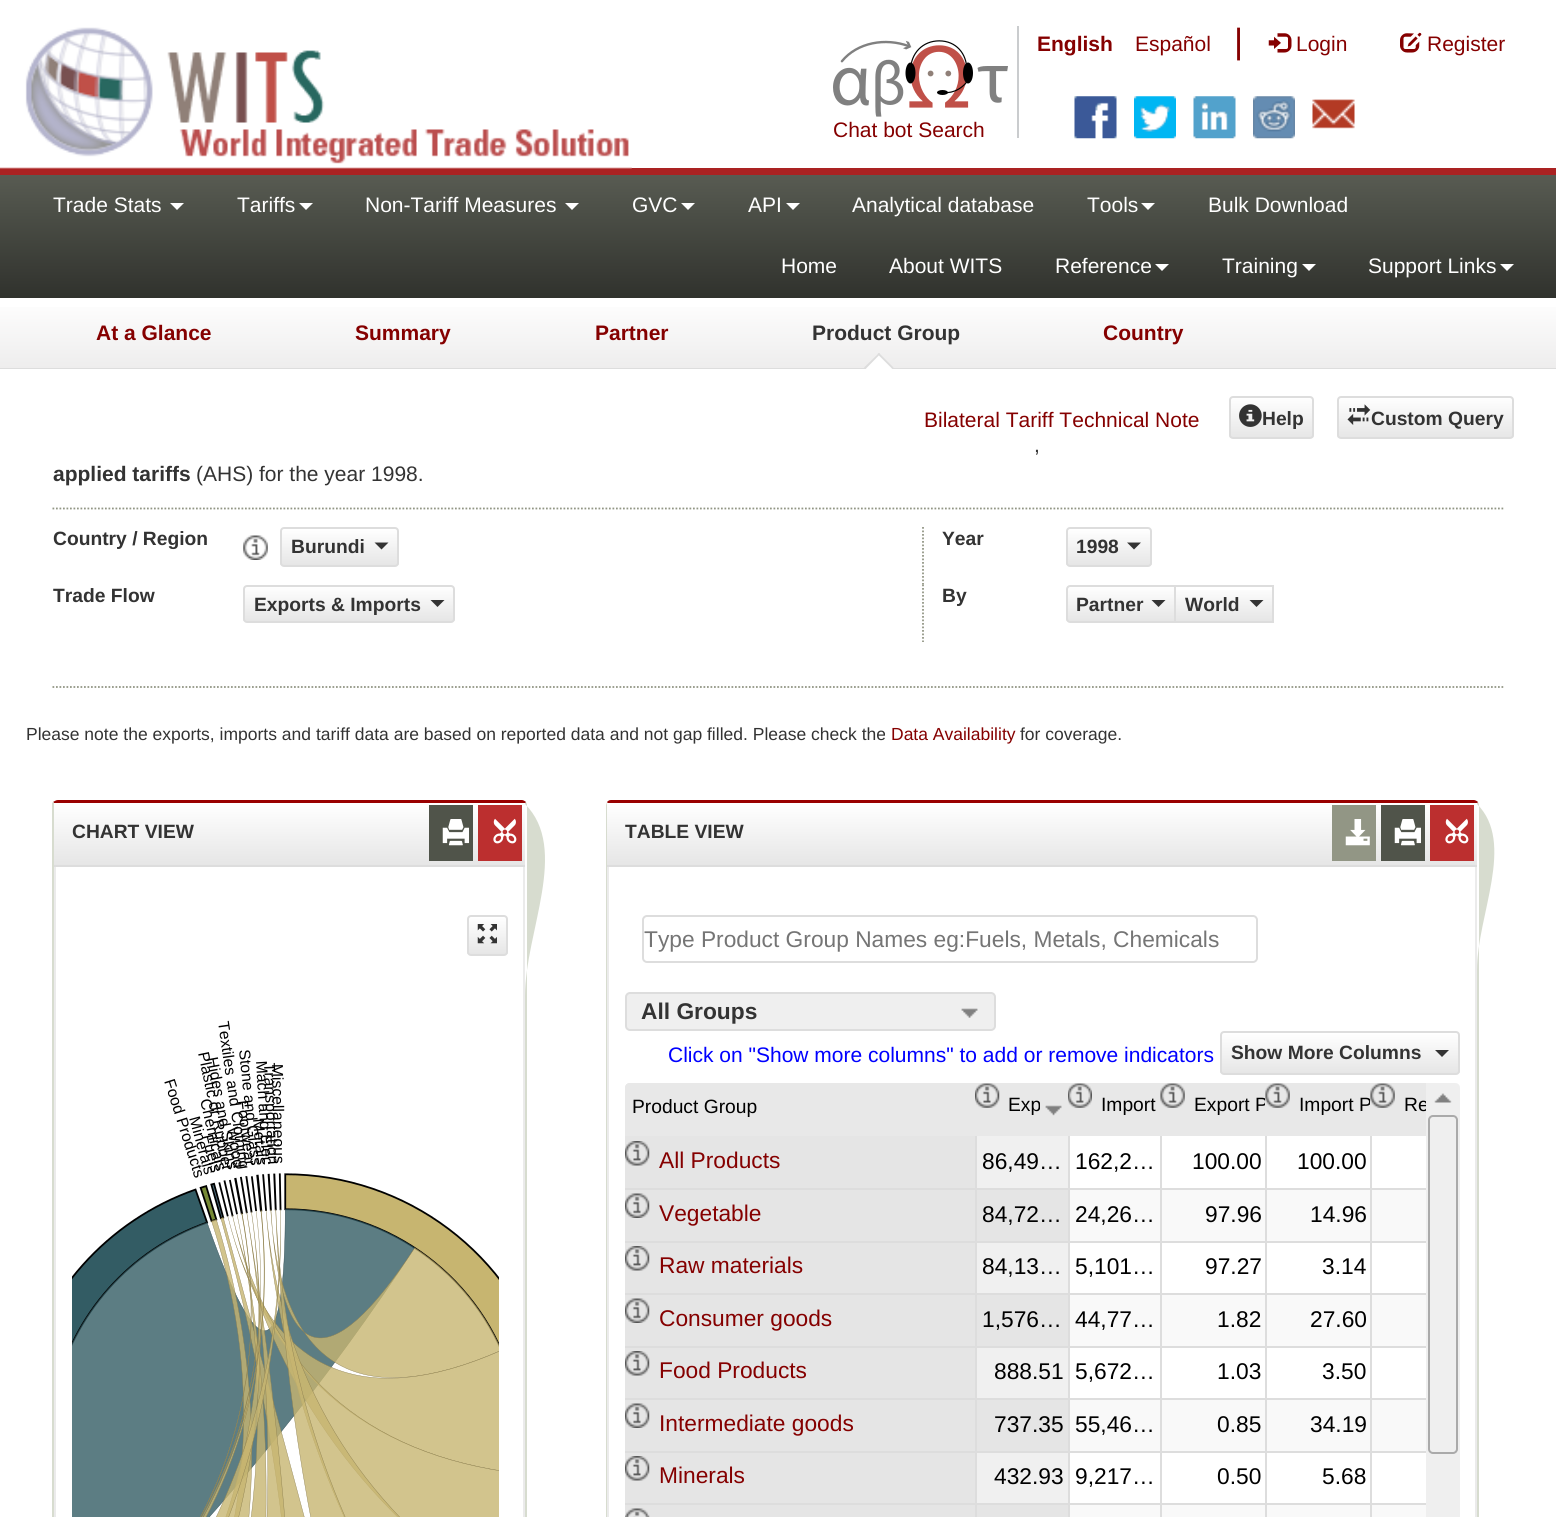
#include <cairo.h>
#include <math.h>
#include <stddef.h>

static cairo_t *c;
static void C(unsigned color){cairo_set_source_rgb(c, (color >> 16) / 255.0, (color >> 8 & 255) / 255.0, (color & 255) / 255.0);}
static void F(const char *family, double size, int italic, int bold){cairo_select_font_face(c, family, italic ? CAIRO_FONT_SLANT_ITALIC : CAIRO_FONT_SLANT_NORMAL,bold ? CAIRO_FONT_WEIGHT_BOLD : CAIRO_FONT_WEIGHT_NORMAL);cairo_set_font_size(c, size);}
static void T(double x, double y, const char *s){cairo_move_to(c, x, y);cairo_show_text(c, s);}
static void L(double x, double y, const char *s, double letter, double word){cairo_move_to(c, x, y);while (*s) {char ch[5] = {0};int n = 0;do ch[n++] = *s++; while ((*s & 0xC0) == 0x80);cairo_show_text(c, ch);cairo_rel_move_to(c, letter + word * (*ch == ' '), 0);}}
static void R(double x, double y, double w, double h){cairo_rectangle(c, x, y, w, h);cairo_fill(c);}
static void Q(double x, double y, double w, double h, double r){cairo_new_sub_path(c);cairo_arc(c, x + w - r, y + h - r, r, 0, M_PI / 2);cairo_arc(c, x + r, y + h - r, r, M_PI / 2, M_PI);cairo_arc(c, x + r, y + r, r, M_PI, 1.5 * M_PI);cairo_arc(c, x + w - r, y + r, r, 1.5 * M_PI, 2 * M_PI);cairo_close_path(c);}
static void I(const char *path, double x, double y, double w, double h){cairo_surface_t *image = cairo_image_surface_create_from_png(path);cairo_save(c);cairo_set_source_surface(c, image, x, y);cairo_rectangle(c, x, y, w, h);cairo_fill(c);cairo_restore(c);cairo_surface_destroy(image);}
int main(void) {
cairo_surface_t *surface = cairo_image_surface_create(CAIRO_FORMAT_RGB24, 1556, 1517);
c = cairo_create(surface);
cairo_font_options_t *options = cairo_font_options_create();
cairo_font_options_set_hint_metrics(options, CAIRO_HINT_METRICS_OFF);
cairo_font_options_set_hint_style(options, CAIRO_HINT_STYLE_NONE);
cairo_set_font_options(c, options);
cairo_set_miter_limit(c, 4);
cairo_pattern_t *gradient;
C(0xffffff);
cairo_paint(c);
C(0xaa2222);
R(0,168,1556,7);
I("1.png",0,27,632,142);
C(0xcaccce);
R(1017,26,2,112);
F("Liberation Sans",21,0,1);
C(0x850000);
T(1037,51,"English");
F("Liberation Sans",21,0,0);
T(1135,51,"Español");
F("Liberation Sans",35,0,0);
T(1234,53,"|");
I("2.png",1268,33,24,20);
F("Liberation Sans",21,0,0);
T(1296,51,"Login");
I("3.png",1400,32,22,21);
T(1427,51,"Register");
I("4.png",833,40,175,77);
T(833,137,"Chat bot Search");
I("5.png",1074,96,43,43);
I("6.png",1134,96,42,43);
I("7.png",1193,96,43,43);
I("8.png",1253,96,42,43);
I("9.png",1312,99,43,30);
gradient = cairo_pattern_create_linear(779,175,779,298);
cairo_pattern_add_color_stop_rgba(gradient,0,0.345,0.357,0.322,1);
cairo_pattern_add_color_stop_rgba(gradient,1,0.188,0.196,0.176,1);
cairo_set_source(c,gradient);
cairo_pattern_destroy(gradient);
R(0,175,1556,123);
C(0xffffff);
T(53,212,"Trade Stats");
cairo_new_path(c);
cairo_move_to(c,170,203);
cairo_line_to(c,184,203);
cairo_line_to(c,177,210);
cairo_close_path(c);
cairo_fill(c);
T(237,212,"Tariffs");
cairo_new_path(c);
cairo_move_to(c,299,203);
cairo_line_to(c,313,203);
cairo_line_to(c,306,210);
cairo_close_path(c);
cairo_fill(c);
T(365,212,"Non-Tariff Measures");
cairo_new_path(c);
cairo_move_to(c,565,203);
cairo_line_to(c,579,203);
cairo_line_to(c,572,210);
cairo_close_path(c);
cairo_fill(c);
T(632,212,"GVC");
cairo_new_path(c);
cairo_move_to(c,681,203);
cairo_line_to(c,695,203);
cairo_line_to(c,688,210);
cairo_close_path(c);
cairo_fill(c);
T(748,212,"API");
cairo_new_path(c);
cairo_move_to(c,786,203);
cairo_line_to(c,800,203);
cairo_line_to(c,793,210);
cairo_close_path(c);
cairo_fill(c);
T(852,212,"Analytical database");
T(1087,212,"Tools");
cairo_new_path(c);
cairo_move_to(c,1141,203);
cairo_line_to(c,1155,203);
cairo_line_to(c,1148,210);
cairo_close_path(c);
cairo_fill(c);
T(1208,212,"Bulk Download");
T(781,273,"Home");
T(889,273,"About WITS");
T(1055,273,"Reference");
cairo_new_path(c);
cairo_move_to(c,1155,264);
cairo_line_to(c,1169,264);
cairo_line_to(c,1162,271);
cairo_close_path(c);
cairo_fill(c);
T(1222,273,"Training");
cairo_new_path(c);
cairo_move_to(c,1302,264);
cairo_line_to(c,1316,264);
cairo_line_to(c,1309,271);
cairo_close_path(c);
cairo_fill(c);
T(1368,273,"Support Links");
cairo_new_path(c);
cairo_move_to(c,1500,264);
cairo_line_to(c,1514,264);
cairo_line_to(c,1507,271);
cairo_close_path(c);
cairo_fill(c);
gradient = cairo_pattern_create_linear(779,297,779,368);
cairo_pattern_add_color_stop_rgba(gradient,0,1,1,1,1);
cairo_pattern_add_color_stop_rgba(gradient,1,0.933,0.929,0.929,1);
cairo_set_source(c,gradient);
cairo_pattern_destroy(gradient);
R(0,307,1556,61);
C(0xdddddd);
R(0,368,1556,1);
F("Liberation Sans",21,0,1);
C(0x850000);
T(96,340,"At a Glance");
T(355,340,"Summary");
T(595,340,"Partner");
C(0x333333);
T(812,340,"Product Group");
C(0xffffff);
cairo_new_path(c);
cairo_move_to(c,865.5,369);
cairo_line_to(c,879,355.5);
cairo_line_to(c,892.5,369);
cairo_line_to(c,879,382.5);
cairo_close_path(c);
cairo_fill(c);
C(0xdddddd);
cairo_new_path(c);
cairo_move_to(c,864,367.5);
cairo_line_to(c,879,353);
cairo_line_to(c,880,354);
cairo_line_to(c,865.5,369);
cairo_close_path(c);
cairo_fill(c);
cairo_new_path(c);
cairo_move_to(c,877.5,354);
cairo_line_to(c,879,353);
cairo_line_to(c,893.5,367.5);
cairo_line_to(c,892.5,369);
cairo_close_path(c);
cairo_fill(c);
C(0x850000);
T(1103,340,"Country");
F("Liberation Sans",21,0,0);
T(924,427,"Bilateral Tariff Technical Note");
cairo_save(c);
Q(1229,396,85,43,4);
cairo_clip(c);
gradient = cairo_pattern_create_linear(1271,397,1271,438);
cairo_pattern_add_color_stop_rgba(gradient,0,1,1,1,1);
cairo_pattern_add_color_stop_rgba(gradient,1,0.902,0.902,0.902,1);
cairo_set_source(c,gradient);
cairo_pattern_destroy(gradient);
R(1229,397,85,41);
cairo_restore(c);
Q(1230,397,83,41,3);
C(0xdddddd);
cairo_stroke(c);
I("10.png",1239,404,23,23);
F("Liberation Sans",19.25,0,1);
C(0x333333);
T(1262,425,"Help");
cairo_save(c);
Q(1337,396,177,43,4);
cairo_clip(c);
gradient = cairo_pattern_create_linear(1425,397,1425,438);
cairo_pattern_add_color_stop_rgba(gradient,0,1,1,1,1);
cairo_pattern_add_color_stop_rgba(gradient,1,0.902,0.902,0.902,1);
cairo_set_source(c,gradient);
cairo_pattern_destroy(gradient);
R(1337,397,177,41);
cairo_restore(c);
Q(1338,397,175,41,3);
C(0xdddddd);
cairo_stroke(c);
I("11.png",1347,404,24,21);
C(0x333333);
T(1371,425,"Custom Query");
F("Liberation Sans",21,0,0);
T(1034,452,",");
F("Liberation Sans",21,0,1);
T(53,481,"applied tariffs");
F("Liberation Sans",21,0,0);
T(196,481,"(AHS) for the year 1998.");
cairo_new_path(c);
cairo_move_to(c,52.5,508.5);
cairo_line_to(c,1505,508.5);
C(0x929685);
cairo_set_line_width(c,1.8);
cairo_set_dash(c,(double[]){1.75,1.75},2,0);
cairo_stroke(c);
cairo_new_path(c);
cairo_move_to(c,52.5,687);
cairo_line_to(c,1505,687);
cairo_stroke(c);
cairo_new_path(c);
cairo_move_to(c,923,527);
cairo_line_to(c,923,584.5);
cairo_stroke(c);
F("Liberation Sans",19.25,0,1);
C(0x333333);
T(53,545,"Country / Region");
I("12.png",243,535,25,25);
cairo_save(c);
Q(280,527,119,40,4);
cairo_clip(c);
gradient = cairo_pattern_create_linear(340,529,340,565);
cairo_pattern_add_color_stop_rgba(gradient,0,1,1,1,1);
cairo_pattern_add_color_stop_rgba(gradient,1,0.902,0.902,0.902,1);
cairo_set_source(c,gradient);
cairo_pattern_destroy(gradient);
R(280,529,119,36);
cairo_restore(c);
Q(281,528,117,38,3);
C(0xdddddd);
cairo_set_line_width(c,2);
cairo_set_dash(c,NULL,0,0);
cairo_stroke(c);
C(0x333333);
T(291,553,"Burundi");
cairo_new_path(c);
cairo_move_to(c,374.5,542.5);
cairo_line_to(c,388.5,542.5);
cairo_line_to(c,381.5,549.5);
cairo_close_path(c);
cairo_fill(c);
T(942,545,"Year");
cairo_save(c);
Q(1066,527,86,40,4);
cairo_clip(c);
gradient = cairo_pattern_create_linear(1109,529,1109,565);
cairo_pattern_add_color_stop_rgba(gradient,0,1,1,1,1);
cairo_pattern_add_color_stop_rgba(gradient,1,0.902,0.902,0.902,1);
cairo_set_source(c,gradient);
cairo_pattern_destroy(gradient);
R(1066,529,86,36);
cairo_restore(c);
Q(1067,528,84,38,3);
C(0xdddddd);
cairo_stroke(c);
C(0x333333);
T(1076,553,"1998");
cairo_new_path(c);
cairo_move_to(c,1127,542.5);
cairo_line_to(c,1141,542.5);
cairo_line_to(c,1134,549.5);
cairo_close_path(c);
cairo_fill(c);
cairo_new_path(c);
cairo_move_to(c,923,584.5);
cairo_line_to(c,923,642);
C(0x929685);
cairo_set_line_width(c,1.8);
cairo_set_dash(c,(double[]){1.75,1.75},2,0);
cairo_stroke(c);
C(0x333333);
T(53,602,"Trade Flow");
cairo_save(c);
Q(243,585,212,38,4);
cairo_clip(c);
gradient = cairo_pattern_create_linear(349,586,349,621);
cairo_pattern_add_color_stop_rgba(gradient,0,1,1,1,1);
cairo_pattern_add_color_stop_rgba(gradient,1,0.902,0.902,0.902,1);
cairo_set_source(c,gradient);
cairo_pattern_destroy(gradient);
R(243,586,212,35);
cairo_restore(c);
Q(244,586,210,36,3);
C(0xdddddd);
cairo_set_line_width(c,2);
cairo_set_dash(c,NULL,0,0);
cairo_stroke(c);
C(0x333333);
T(254,611,"Exports & Imports");
cairo_new_path(c);
cairo_move_to(c,430.5,600);
cairo_line_to(c,444.5,600);
cairo_line_to(c,437.5,607);
cairo_close_path(c);
cairo_fill(c);
T(942,602,"By");
cairo_save(c);
cairo_new_path(c);
cairo_move_to(c,1070,585);
cairo_line_to(c,1176,585);
cairo_line_to(c,1176,623);
cairo_line_to(c,1070,623);
cairo_curve_to(c,1068,623,1066,621,1066,619);
cairo_line_to(c,1066,589);
cairo_curve_to(c,1066,587,1068,585,1070,585);
cairo_close_path(c);
cairo_clip(c);
gradient = cairo_pattern_create_linear(1121,586,1121,621);
cairo_pattern_add_color_stop_rgba(gradient,0,1,1,1,1);
cairo_pattern_add_color_stop_rgba(gradient,1,0.902,0.902,0.902,1);
cairo_set_source(c,gradient);
cairo_pattern_destroy(gradient);
R(1066,586,108,35);
cairo_restore(c);
cairo_new_path(c);
cairo_move_to(c,1070,586);
cairo_line_to(c,1175,586);
cairo_line_to(c,1175,622);
cairo_line_to(c,1070,622);
cairo_curve_to(c,1068.5,622,1067,620.5,1067,619);
cairo_line_to(c,1067,589);
cairo_curve_to(c,1067,587.5,1068.5,586,1070,586);
cairo_close_path(c);
C(0xdddddd);
cairo_stroke(c);
C(0x333333);
T(1076,611,"Partner");
cairo_new_path(c);
cairo_move_to(c,1151.5,600);
cairo_line_to(c,1165.5,600);
cairo_line_to(c,1158.5,607);
cairo_close_path(c);
cairo_fill(c);
gradient = cairo_pattern_create_linear(1224,586,1224,621);
cairo_pattern_add_color_stop_rgba(gradient,0,1,1,1,1);
cairo_pattern_add_color_stop_rgba(gradient,1,0.902,0.902,0.902,1);
cairo_set_source(c,gradient);
cairo_pattern_destroy(gradient);
R(1176,590,96,31);
cairo_rectangle(c,1175,586,98,36);
C(0xdddddd);
cairo_stroke(c);
C(0x333333);
T(1185,611,"World");
cairo_new_path(c);
cairo_move_to(c,1249.5,600);
cairo_line_to(c,1263.5,600);
cairo_line_to(c,1256.5,607);
cairo_close_path(c);
cairo_fill(c);
F("Liberation Sans",17.5,0,0);
T(26,740,"Please note the exports, imports and tariff data are based on reported data and not gap filled. Please check the");
C(0x850000);
T(891,740,"Data Availability");
C(0x333333);
T(1020,740,"for coverage.");
C(0xebebeb);
cairo_new_path(c);
cairo_move_to(c,58,803);
cairo_curve_to(c,56,803,54,804,54,805);
cairo_line_to(c,54,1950);
cairo_curve_to(c,54,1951,56,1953,58,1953);
cairo_curve_to(c,57,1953,56,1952,56,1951);
cairo_line_to(c,56,807);
cairo_line_to(c,523,807);
cairo_line_to(c,523,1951);
cairo_line_to(c,522,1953);
cairo_curve_to(c,524,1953,525,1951,525,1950);
cairo_line_to(c,525,805);
cairo_curve_to(c,525,804,523,803,522,803);
cairo_close_path(c);
cairo_fill(c);
C(0x990000);
cairo_new_path(c);
cairo_move_to(c,58,800);
cairo_curve_to(c,56,800,55,801,53,802);
cairo_line_to(c,55,804);
cairo_line_to(c,58,803);
cairo_line_to(c,522,803);
cairo_line_to(c,525,804);
cairo_line_to(c,526,802);
cairo_curve_to(c,525,801,523,800,522,800);
cairo_close_path(c);
cairo_fill(c);
C(0xd7dccf);
cairo_new_path(c);
cairo_move_to(c,527,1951);
cairo_line_to(c,525,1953);
cairo_line_to(c,524,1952);
cairo_line_to(c,525,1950);
cairo_line_to(c,525,996);
cairo_curve_to(c,525,932,570,849,525,804);
cairo_line_to(c,526,802);
cairo_line_to(c,527,804);
cairo_close_path(c);
cairo_fill(c);
cairo_new_path(c);
cairo_move_to(c,52,803);
cairo_line_to(c,53,802);
cairo_line_to(c,55,804);
cairo_line_to(c,54,805);
cairo_line_to(c,54,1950);
cairo_line_to(c,55,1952);
cairo_line_to(c,54,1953);
cairo_line_to(c,52,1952);
cairo_close_path(c);
cairo_fill(c);
gradient = cairo_pattern_create_linear(290,803,290,865);
cairo_pattern_add_color_stop_rgba(gradient,0,1,1,1,1);
cairo_pattern_add_color_stop_rgba(gradient,1,0.902,0.902,0.902,1);
cairo_set_source(c,gradient);
cairo_pattern_destroy(gradient);
R(54,803,471,62);
C(0xdddddd);
R(54,865,471,2);
F("Liberation Sans",19.25,0,1);
C(0x333333);
T(72,838,"CHART VIEW");
C(0x50544a);
R(429,805,44,56);
I("13.png",442,819,27,27);
C(0xbc2f2f);
R(478,805,44,56);
I("14.png",493,818,24,26);
cairo_save(c);
Q(467,915,41,41,4);
cairo_clip(c);
gradient = cairo_pattern_create_linear(487,917,487,954);
cairo_pattern_add_color_stop_rgba(gradient,0,1,1,1,1);
cairo_pattern_add_color_stop_rgba(gradient,1,0.902,0.902,0.902,1);
cairo_set_source(c,gradient);
cairo_pattern_destroy(gradient);
R(467,917,41,37);
cairo_restore(c);
Q(468,916,39,39,3);
C(0xdddddd);
cairo_stroke(c);
I("15.png",477,924,20,20);
I("16.png",72,1173,427,344);
F("Liberation Sans",15.75,0,0);
C(0x000000);
cairo_save(c);
cairo_translate(c,164,1081);
cairo_rotate(c,72.4 * M_PI / 180);
T(0,0,"Food Products");
cairo_restore(c);
cairo_save(c);
cairo_translate(c,189,1118);
cairo_rotate(c,74.5 * M_PI / 180);
T(0,0,"Minerals");
cairo_restore(c);
cairo_save(c);
cairo_translate(c,202,1136);
cairo_rotate(c,75.9 * M_PI / 180);
T(0,0,"Fuels");
cairo_restore(c);
cairo_save(c);
cairo_translate(c,200,1100);
cairo_rotate(c,77.1 * M_PI / 180);
T(0,0,"Chemicals");
cairo_restore(c);
cairo_save(c);
cairo_translate(c,198,1053);
cairo_rotate(c,78.2 * M_PI / 180);
T(0,0,"Plastic or Rubber");
cairo_restore(c);
cairo_save(c);
cairo_translate(c,207,1058);
cairo_rotate(c,79.4 * M_PI / 180);
T(0,0,"Hides and Skins");
cairo_restore(c);
cairo_save(c);
cairo_translate(c,227,1128);
cairo_rotate(c,80.6 * M_PI / 180);
T(0,0,"Wood");
cairo_restore(c);
cairo_save(c);
cairo_translate(c,218,1022);
cairo_rotate(c,81.8 * M_PI / 180);
L(0,0,"Textiles and Clothing",0,1);
cairo_restore(c);
cairo_save(c);
cairo_translate(c,237,1101);
cairo_rotate(c,82.9 * M_PI / 180);
T(0,0,"Footwear");
cairo_restore(c);
cairo_save(c);
cairo_translate(c,239,1050);
cairo_rotate(c,84.1 * M_PI / 180);
T(0,0,"Stone and Glass");
cairo_restore(c);
cairo_save(c);
cairo_translate(c,253,1119);
cairo_rotate(c,85.3 * M_PI / 180);
T(0,0,"Metals");
cairo_restore(c);
cairo_save(c);
cairo_translate(c,256,1061);
cairo_rotate(c,86.5 * M_PI / 180);
T(0,0,"Mach and Elec");
cairo_restore(c);
cairo_save(c);
cairo_translate(c,264,1063);
cairo_rotate(c,87.7 * M_PI / 180);
T(0,0,"Transportation");
cairo_restore(c);
cairo_save(c);
cairo_translate(c,272,1064);
cairo_rotate(c,88.9 * M_PI / 180);
T(0,0,"Miscellaneous");
cairo_restore(c);
C(0xebebeb);
cairo_new_path(c);
cairo_move_to(c,611,803);
cairo_curve_to(c,609,803,607,804,607,805);
cairo_line_to(c,607,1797);
cairo_curve_to(c,607,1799,608,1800,610,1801);
cairo_line_to(c,609,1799);
cairo_line_to(c,609,807);
cairo_line_to(c,1475,807);
cairo_line_to(c,1475,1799);
cairo_line_to(c,1474,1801);
cairo_curve_to(c,1476,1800,1477,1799,1477,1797);
cairo_line_to(c,1477,805);
cairo_curve_to(c,1477,804,1475,803,1474,803);
cairo_close_path(c);
cairo_fill(c);
C(0x990000);
cairo_new_path(c);
cairo_move_to(c,611,800);
cairo_curve_to(c,609,800,608,801,607,802);
cairo_line_to(c,608,804);
cairo_line_to(c,611,803);
cairo_line_to(c,1474,803);
cairo_line_to(c,1477,804);
cairo_line_to(c,1478,802);
cairo_curve_to(c,1477,801,1475,800,1474,800);
cairo_close_path(c);
cairo_fill(c);
C(0xd7dccf);
cairo_new_path(c);
cairo_move_to(c,1479,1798);
cairo_line_to(c,1477,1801);
cairo_line_to(c,1476,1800);
cairo_line_to(c,1477,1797);
cairo_line_to(c,1477,970);
cairo_curve_to(c,1477,915,1516,843,1477,804);
cairo_line_to(c,1478,802);
cairo_line_to(c,1479,804);
cairo_close_path(c);
cairo_fill(c);
cairo_new_path(c);
cairo_move_to(c,607,802);
cairo_line_to(c,606,805);
cairo_line_to(c,606,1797);
cairo_curve_to(c,606,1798,606,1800,607,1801);
cairo_line_to(c,608,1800);
cairo_line_to(c,607,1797);
cairo_line_to(c,607,805);
cairo_line_to(c,608,804);
cairo_close_path(c);
cairo_fill(c);
gradient = cairo_pattern_create_linear(1042,803,1042,865);
cairo_pattern_add_color_stop_rgba(gradient,0,1,1,1,1);
cairo_pattern_add_color_stop_rgba(gradient,1,0.902,0.902,0.902,1);
cairo_set_source(c,gradient);
cairo_pattern_destroy(gradient);
R(607,803,870,62);
C(0xdddddd);
R(607,865,870,2);
F("Liberation Sans",19.25,0,1);
C(0x333333);
T(625,838,"TABLE VIEW");
C(0x929685);
R(1332,805,44,56);
I("17.png",1345,819,25,27);
C(0x50544a);
R(1381,805,44,56);
I("13.png",1394,819,27,27);
C(0xbc2f2f);
R(1430,805,44,56);
I("14.png",1445,818,24,26);
Q(643,916,614,46,4);
C(0xdddddd);
cairo_stroke(c);
F("Liberation Sans",22.75,0,0);
C(0x757575);
T(644,947,"Type Product Group Names eg:Fuels, Metals, Chemicals");
C(0xefefef);
Q(626,993,369,37,4);
cairo_fill_preserve(c);
C(0xdddddd);
cairo_stroke(c);
F("Liberation Sans",22.75,0,1);
C(0x333333);
T(641,1019,"All Groups");
I("18.png",961,1008,17,10);
F("Liberation Sans",21,0,0);
C(0x0000ff);
T(668,1062,"Click on \"Show more columns\" to add or remove indicators");
cairo_save(c);
Q(1220,1031,240,44,4);
cairo_clip(c);
gradient = cairo_pattern_create_linear(1340,1033,1340,1073);
cairo_pattern_add_color_stop_rgba(gradient,0,1,1,1,1);
cairo_pattern_add_color_stop_rgba(gradient,1,0.902,0.902,0.902,1);
cairo_set_source(c,gradient);
cairo_pattern_destroy(gradient);
R(1220,1033,240,40);
cairo_restore(c);
Q(1221,1032,238,42,3);
C(0xdddddd);
cairo_stroke(c);
F("Liberation Sans",19.25,0,1);
C(0x333333);
T(1231,1059,"Show More Columns");
cairo_new_path(c);
cairo_move_to(c,1435,1050);
cairo_line_to(c,1449,1050);
cairo_line_to(c,1442,1057);
cairo_close_path(c);
cairo_fill(c);
C(0xe8e8e8);
cairo_new_path(c);
cairo_move_to(c,630,1083);
cairo_line_to(c,1426,1083);
cairo_line_to(c,1426,1136);
cairo_line_to(c,625,1136);
cairo_line_to(c,625,1088);
cairo_curve_to(c,625,1085,627,1083,630,1083);
cairo_close_path(c);
cairo_fill(c);
cairo_new_path(c);
cairo_move_to(c,630,1083);
cairo_line_to(c,975,1083);
cairo_line_to(c,975,1136);
cairo_line_to(c,625,1136);
cairo_line_to(c,625,1088);
cairo_curve_to(c,625,1085,627,1083,630,1083);
cairo_close_path(c);
cairo_fill(c);
F("Liberation Sans",19.25,0,0);
C(0x000000);
T(632,1113,"Product Group");
I("19.png",975,1083,25,25);
T(1008,1111,"Exp");
C(0xe8e8e8);
R(1040,1103,1,6);
I("20.png",1045,1105,17,11);
I("21.png",1068,1083,24,25);
C(0x000000);
T(1101,1111,"Import");
I("22.png",1160,1083,25,25);
cairo_save(c);
cairo_rectangle(c,1160,1083,105,53);
cairo_clip(c);
T(1194,1111,"Export P");
cairo_restore(c);
I("22.png",1265,1083,25,25);
cairo_save(c);
cairo_rectangle(c,1265,1083,105,53);
cairo_clip(c);
T(1299,1111,"Import P");
cairo_restore(c);
I("22.png",1370,1083,25,25);
cairo_save(c);
cairo_rectangle(c,1370,1083,56,53);
cairo_clip(c);
T(1404,1111,"Re");
cairo_restore(c);
C(0xe5e5e5);
R(625,1136,350,52);
C(0xdddddd);
R(1370,1503,2,14);
R(1370,1503,56,2);
R(1370,1451,2,54);
R(1370,1451,56,2);
R(1370,1398,2,55);
R(1370,1398,56,2);
R(1370,1346,2,54);
R(1370,1346,56,2);
R(1370,1293,2,55);
R(1370,1293,56,2);
R(1370,1241,2,54);
R(1370,1241,56,2);
R(1370,1188,2,55);
R(1370,1188,56,2);
R(1370,1136,2,54);
R(1265,1503,2,14);
R(1265,1503,107,2);
R(1265,1451,2,54);
R(1265,1451,107,2);
R(1265,1398,2,55);
R(1265,1398,107,2);
R(1265,1346,2,54);
R(1265,1346,107,2);
R(1265,1293,2,55);
R(1265,1293,107,2);
R(1265,1241,2,54);
R(1265,1241,107,2);
R(1265,1188,2,55);
R(1265,1188,107,2);
R(1265,1136,2,54);
R(1160,1503,2,14);
R(1160,1503,107,2);
R(1160,1451,2,54);
R(1160,1451,107,2);
R(1160,1398,2,55);
R(1160,1398,107,2);
R(1160,1346,2,54);
R(1160,1346,107,2);
R(1160,1293,2,55);
R(1160,1293,107,2);
R(1160,1241,2,54);
R(1160,1241,107,2);
R(1160,1188,2,55);
R(1160,1188,107,2);
R(1160,1136,2,54);
R(1068,1503,2,14);
R(1068,1503,94,2);
R(1068,1451,2,54);
R(1068,1451,94,2);
R(1068,1398,2,55);
R(1068,1398,94,2);
R(1068,1346,2,54);
R(1068,1346,94,2);
R(1068,1293,2,55);
R(1068,1293,94,2);
R(1068,1241,2,54);
R(1068,1241,94,2);
R(1068,1188,2,55);
R(1068,1188,94,2);
R(1068,1136,2,54);
R(975,1503,2,14);
R(975,1503,94,2);
R(975,1451,2,54);
R(975,1451,94,2);
R(975,1398,2,55);
R(975,1398,94,2);
R(975,1346,2,54);
R(975,1346,94,2);
R(975,1293,2,55);
R(975,1293,94,2);
R(975,1241,2,54);
R(975,1241,94,2);
R(975,1188,2,55);
R(975,1188,94,2);
R(975,1136,2,54);
R(625,1188,352,2);
I("23.png",625,1141,25,25);
F("Liberation Sans",22.75,0,0);
C(0x850000);
T(659,1168,"All Products");
C(0xf0f0f0);
R(977,1136,91,52);
C(0x000000);
T(982,1169,"86,49…");
T(1075,1169,"162,2…");
T(1192,1169,"100.00");
T(1297,1169,"100.00");
C(0xe5e5e5);
R(625,1190,350,51);
C(0xdddddd);
R(625,1241,352,2);
I("24.png",625,1193,25,25);
C(0x850000);
T(659,1221,"Vegetable");
C(0xe5e5e5);
R(977,1190,91,51);
C(0x000000);
T(982,1222,"84,72…");
C(0xf9f9f9);
R(1070,1190,90,51);
C(0x000000);
T(1075,1222,"24,26…");
C(0xf9f9f9);
R(1162,1190,103,51);
C(0x000000);
T(1205,1222,"97.96");
C(0xf9f9f9);
R(1267,1190,103,51);
C(0x000000);
T(1310,1222,"14.96");
C(0xf9f9f9);
R(1372,1190,54,51);
C(0xe5e5e5);
R(625,1243,350,50);
C(0xdddddd);
R(625,1293,352,2);
I("23.png",625,1246,25,25);
C(0x850000);
T(659,1273,"Raw materials");
C(0xf0f0f0);
R(977,1243,91,50);
C(0x000000);
T(982,1274,"84,13…");
T(1075,1274,"5,101…");
T(1205,1274,"97.27");
T(1322,1274,"3.14");
C(0xe5e5e5);
R(625,1295,350,51);
C(0xdddddd);
R(625,1346,352,2);
I("24.png",625,1298,25,25);
C(0x850000);
T(659,1326,"Consumer goods");
C(0xe5e5e5);
R(977,1295,91,51);
C(0x000000);
T(982,1327,"1,576…");
C(0xf9f9f9);
R(1070,1295,90,51);
C(0x000000);
T(1075,1327,"44,77…");
C(0xf9f9f9);
R(1162,1295,103,51);
C(0x000000);
T(1217,1327,"1.82");
C(0xf9f9f9);
R(1267,1295,103,51);
C(0x000000);
T(1310,1327,"27.60");
C(0xf9f9f9);
R(1372,1295,54,51);
C(0xe5e5e5);
R(625,1348,350,50);
C(0xdddddd);
R(625,1398,352,2);
I("23.png",625,1351,25,25);
C(0x850000);
T(659,1378,"Food Products");
C(0xf0f0f0);
R(977,1348,91,50);
C(0x000000);
T(994,1379,"888.51");
T(1075,1379,"5,672…");
T(1217,1379,"1.03");
T(1322,1379,"3.50");
C(0xe5e5e5);
R(625,1400,350,51);
C(0xdddddd);
R(625,1451,352,2);
I("24.png",625,1403,25,25);
C(0x850000);
T(659,1431,"Intermediate goods");
C(0xe5e5e5);
R(977,1400,91,51);
C(0x000000);
T(994,1432,"737.35");
C(0xf9f9f9);
R(1070,1400,90,51);
C(0x000000);
T(1075,1432,"55,46…");
C(0xf9f9f9);
R(1162,1400,103,51);
C(0x000000);
T(1217,1432,"0.85");
C(0xf9f9f9);
R(1267,1400,103,51);
C(0x000000);
T(1310,1432,"34.19");
C(0xf9f9f9);
R(1372,1400,54,51);
C(0xe5e5e5);
R(625,1453,350,50);
C(0xdddddd);
R(625,1503,352,2);
I("23.png",625,1456,25,25);
C(0x850000);
T(659,1483,"Minerals");
C(0xf0f0f0);
R(977,1453,91,50);
C(0x000000);
T(994,1484,"432.93");
T(1075,1484,"9,217…");
T(1217,1484,"0.50");
T(1322,1484,"5.68");
C(0xe5e5e5);
R(625,1505,350,12);
I("25.png",625,1508,25,9);
R(977,1505,91,12);
C(0xf9f9f9);
R(1070,1505,90,12);
R(1162,1505,103,12);
R(1267,1505,103,12);
R(1372,1505,54,12);
C(0xefefef);
cairo_new_path(c);
cairo_move_to(c,1426,1083);
cairo_line_to(c,1455,1083);
cairo_curve_to(c,1458,1083,1460,1085,1460,1088);
cairo_line_to(c,1460,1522);
cairo_line_to(c,1426,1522);
cairo_close_path(c);
cairo_fill(c);
I("26.png",1434,1093,18,10);
Q(1429,1116,28,337,4);
C(0xaaaaaa);
cairo_stroke(c);
cairo_surface_write_to_png(surface, "o.png");
cairo_font_options_destroy(options);
cairo_destroy(c);
cairo_surface_destroy(surface);
return 0;
}
